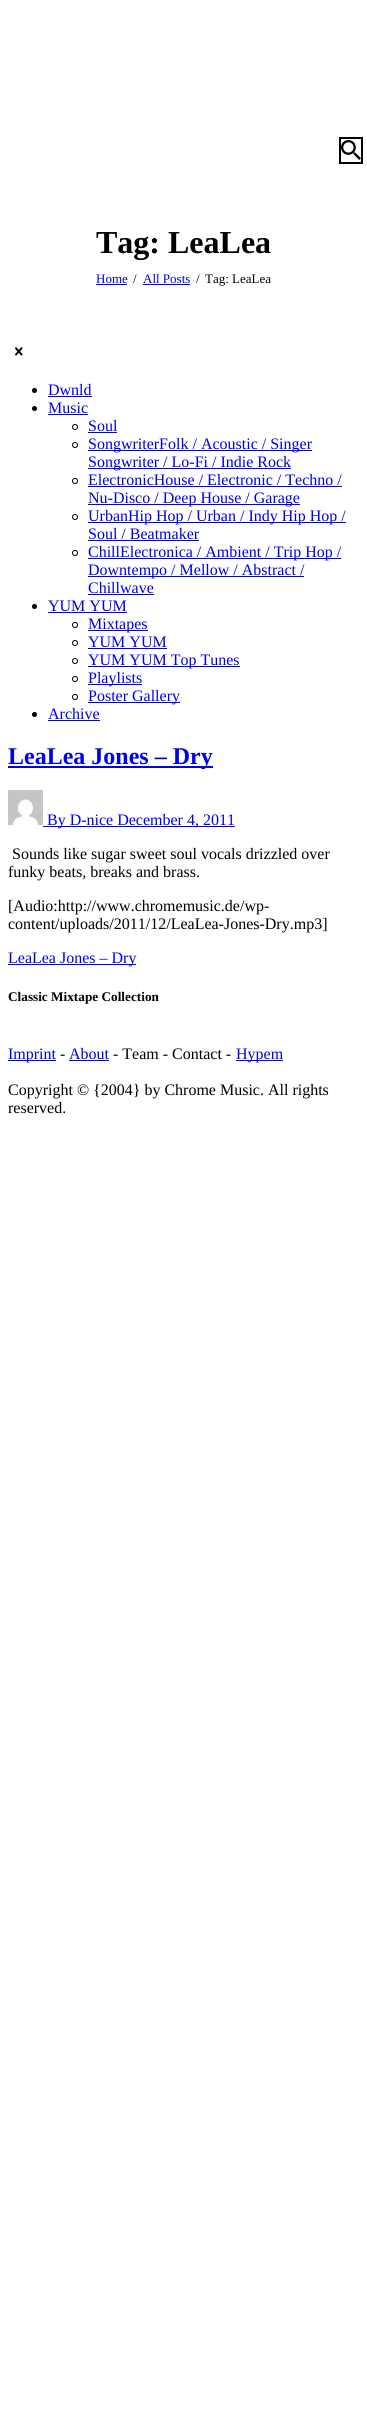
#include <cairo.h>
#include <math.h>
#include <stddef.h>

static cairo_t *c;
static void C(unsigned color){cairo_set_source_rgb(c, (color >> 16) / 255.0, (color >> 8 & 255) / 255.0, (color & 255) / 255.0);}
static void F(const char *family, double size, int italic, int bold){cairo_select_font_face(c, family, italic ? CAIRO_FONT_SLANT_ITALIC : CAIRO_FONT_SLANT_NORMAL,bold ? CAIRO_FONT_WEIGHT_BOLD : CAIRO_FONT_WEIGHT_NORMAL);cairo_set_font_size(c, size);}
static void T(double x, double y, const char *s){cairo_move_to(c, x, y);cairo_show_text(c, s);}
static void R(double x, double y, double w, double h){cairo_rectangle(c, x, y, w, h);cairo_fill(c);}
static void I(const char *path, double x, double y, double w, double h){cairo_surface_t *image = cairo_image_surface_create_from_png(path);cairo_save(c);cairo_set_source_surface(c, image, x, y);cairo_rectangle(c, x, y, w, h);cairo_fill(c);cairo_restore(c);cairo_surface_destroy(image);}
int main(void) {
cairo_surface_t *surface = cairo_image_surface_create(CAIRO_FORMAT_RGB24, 367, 2417);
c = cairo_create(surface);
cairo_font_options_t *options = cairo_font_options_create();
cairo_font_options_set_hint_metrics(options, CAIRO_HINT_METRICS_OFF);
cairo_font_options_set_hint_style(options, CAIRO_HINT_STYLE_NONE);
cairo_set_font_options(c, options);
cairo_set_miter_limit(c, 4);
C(0xffffff);
cairo_paint(c);
cairo_rectangle(c,340,138,22,25);
C(0x000000);
cairo_stroke(c);
I("1.png",341,140,20,20);
F("Liberation Serif",32,0,1);
T(96,253,"Tag: LeaLea");
F("Liberation Serif",13,0,0);
C(0x0000ee);
T(96,283,"Home");
R(96,284,31,1);
C(0x000000);
T(133,283,"/");
C(0x0000ee);
T(143,283,"All Posts");
R(143,284,47,1);
C(0x000000);
T(196,283,"/");
T(205,283,"Tag: LeaLea");
I("2.png",15,347,8,9);
cairo_arc(c,34.5,390.5,2.5,0,2 * M_PI);
cairo_fill(c);
F("Liberation Serif",16,0,0);
C(0x0000ee);
T(48,395,"Dwnld");
R(48,396,44,1);
C(0x000000);
cairo_new_path(c);
cairo_arc(c,34.5,408.5,2.5,0,2 * M_PI);
cairo_fill(c);
C(0x0000ee);
T(48,413,"Music");
R(48,414,40,1);
cairo_new_path(c);
cairo_arc(c,75,427,2.5,0,2 * M_PI);
C(0x000000);
cairo_set_line_width(c,1);
cairo_stroke(c);
C(0x0000ee);
T(88,431,"Soul");
R(88,432,29,1);
cairo_new_path(c);
cairo_arc(c,75,445,2.5,0,2 * M_PI);
C(0x000000);
cairo_stroke(c);
C(0x0000ee);
R(88,450,224,1);
T(88,449,"SongwriterFolk / Acoustic / Singer");
R(88,468,203,1);
T(88,467,"Songwriter / Lo-Fi / Indie Rock");
cairo_new_path(c);
cairo_arc(c,75,481,2.5,0,2 * M_PI);
C(0x000000);
cairo_stroke(c);
C(0x0000ee);
T(88,485,"ElectronicHouse / Electronic / Techno /");
R(88,486,254,1);
R(88,504,212,1);
T(88,503,"Nu-Disco / Deep House / Garage");
cairo_new_path(c);
cairo_arc(c,75,517,2.5,0,2 * M_PI);
C(0x000000);
cairo_stroke(c);
C(0x0000ee);
R(88,522,258,1);
T(88,521,"UrbanHip Hop / Urban / Indy Hip Hop /");
T(88,539,"Soul / Beatmaker");
R(88,540,111,1);
cairo_new_path(c);
cairo_arc(c,75,553,2.5,0,2 * M_PI);
C(0x000000);
cairo_stroke(c);
C(0x0000ee);
R(88,558,253,1);
T(88,557,"ChillElectronica / Ambient / Trip Hop /");
R(88,576,216,1);
T(88,575,"Downtempo / Mellow / Abstract /");
T(88,593,"Chillwave");
R(88,594,66,1);
C(0x000000);
cairo_new_path(c);
cairo_arc(c,34.5,606.5,2.5,0,2 * M_PI);
cairo_fill(c);
C(0x0000ee);
T(48,611,"YUM YUM");
R(48,612,79,1);
cairo_new_path(c);
cairo_arc(c,75,625,2.5,0,2 * M_PI);
C(0x000000);
cairo_stroke(c);
C(0x0000ee);
R(88,630,60,1);
T(88,629,"Mixtapes");
cairo_new_path(c);
cairo_arc(c,75,643,2.5,0,2 * M_PI);
C(0x000000);
cairo_stroke(c);
C(0x0000ee);
T(88,647,"YUM YUM");
R(88,648,79,1);
cairo_new_path(c);
cairo_arc(c,75,661,2.5,0,2 * M_PI);
C(0x000000);
cairo_stroke(c);
C(0x0000ee);
R(88,666,152,1);
T(88,665,"YUM YUM Top Tunes");
cairo_new_path(c);
cairo_arc(c,75,679,2.5,0,2 * M_PI);
C(0x000000);
cairo_stroke(c);
C(0x0000ee);
R(88,684,54,1);
T(88,683,"Playlists");
cairo_new_path(c);
cairo_arc(c,75,697,2.5,0,2 * M_PI);
C(0x000000);
cairo_stroke(c);
C(0x0000ee);
R(88,702,92,1);
T(88,701,"Poster Gallery");
C(0x000000);
cairo_new_path(c);
cairo_arc(c,34.5,714.5,2.5,0,2 * M_PI);
cairo_fill(c);
C(0x0000ee);
T(48,719,"Archive");
R(48,720,52,1);
R(8,766,205,2);
F("Liberation Serif",24,0,1);
T(8,764,"LeaLea Jones – Dry");
I("3.png",8,790,35,35);
R(43,826,192,1);
F("Liberation Serif",16,0,0);
T(47,825,"By D-nice December 4, 2011");
C(0x000000);
T(12,859,"Sounds like sugar sweet soul vocals drizzled over");
T(8,877,"funky beats, breaks and brass.");
T(8,911,"[Audio:http://www.chromemusic.de/wp-");
T(8,929,"content/uploads/2011/12/LeaLea-Jones-Dry.mp3]");
C(0x0000ee);
R(8,964,128,1);
T(8,963,"LeaLea Jones – Dry");
F("Liberation Serif",13.25,0,1);
C(0x000000);
T(8,1001,"Classic Mixtape Collection");
C(0x0000ee);
R(8,1060,48,1);
F("Liberation Serif",16,0,0);
T(8,1059,"Imprint");
C(0x000000);
T(60,1059,"-");
C(0x0000ee);
T(69,1059,"About");
R(69,1060,40,1);
C(0x000000);
T(113,1059,"- Team - Contact -");
C(0x0000ee);
R(236,1060,47,1);
T(236,1059,"Hypem");
C(0x000000);
T(8,1095,"Copyright © {2004} by Chrome Music. All rights");
T(8,1113,"reserved.");
cairo_surface_write_to_png(surface, "o.png");
cairo_font_options_destroy(options);
cairo_destroy(c);
cairo_surface_destroy(surface);
return 0;
}
